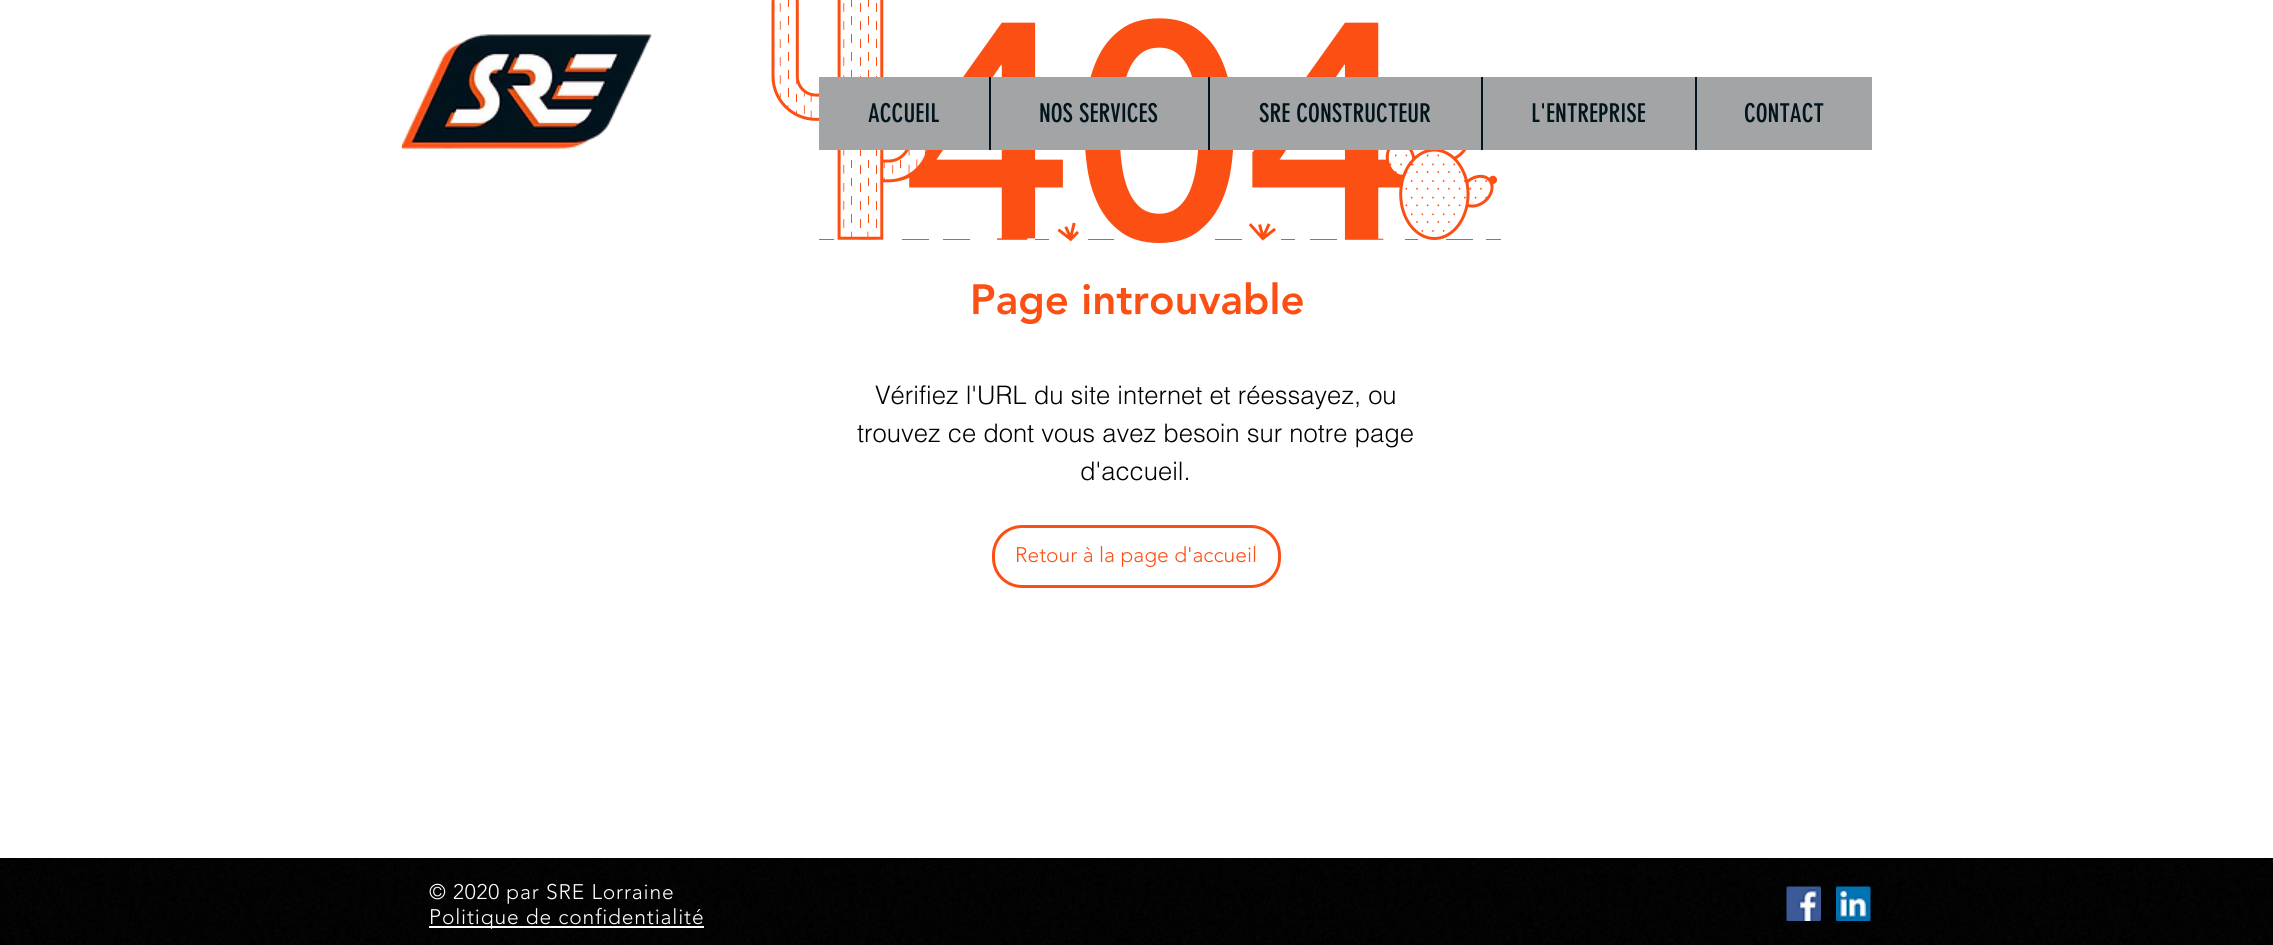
#include <cairo.h>
#include <math.h>
#include <stddef.h>

static cairo_t *c;
static void C(unsigned color){cairo_set_source_rgb(c, (color >> 16) / 255.0, (color >> 8 & 255) / 255.0, (color & 255) / 255.0);}
static void F(const char *family, double size, int italic, int bold){cairo_select_font_face(c, family, italic ? CAIRO_FONT_SLANT_ITALIC : CAIRO_FONT_SLANT_NORMAL,bold ? CAIRO_FONT_WEIGHT_BOLD : CAIRO_FONT_WEIGHT_NORMAL);cairo_set_font_size(c, size);}
static void T(double x, double y, const char *s){cairo_move_to(c, x, y);cairo_show_text(c, s);}
static void L(double x, double y, const char *s, double letter, double word){cairo_move_to(c, x, y);while (*s) {char ch[5] = {0};int n = 0;do ch[n++] = *s++; while ((*s & 0xC0) == 0x80);cairo_show_text(c, ch);cairo_rel_move_to(c, letter + word * (*ch == ' '), 0);}}
static void R(double x, double y, double w, double h){cairo_rectangle(c, x, y, w, h);cairo_fill(c);}
static void Q(double x, double y, double w, double h, double r){cairo_new_sub_path(c);cairo_arc(c, x + w - r, y + h - r, r, 0, M_PI / 2);cairo_arc(c, x + r, y + h - r, r, M_PI / 2, M_PI);cairo_arc(c, x + r, y + r, r, M_PI, 1.5 * M_PI);cairo_arc(c, x + w - r, y + r, r, 1.5 * M_PI, 2 * M_PI);cairo_close_path(c);}
static void I(const char *path, double x, double y, double w, double h){cairo_surface_t *image = cairo_image_surface_create_from_png(path);cairo_save(c);cairo_set_source_surface(c, image, x, y);cairo_rectangle(c, x, y, w, h);cairo_fill(c);cairo_restore(c);cairo_surface_destroy(image);}
int main(void) {
cairo_surface_t *surface = cairo_image_surface_create(CAIRO_FORMAT_RGB24, 2273, 945);
c = cairo_create(surface);
cairo_font_options_t *options = cairo_font_options_create();
cairo_font_options_set_hint_metrics(options, CAIRO_HINT_METRICS_OFF);
cairo_font_options_set_hint_style(options, CAIRO_HINT_STYLE_NONE);
cairo_set_font_options(c, options);
cairo_set_miter_limit(c, 4);
C(0xffffff);
cairo_paint(c);
I("1.png",402,34,250,115);
I("2.png",771,0,730,243);
C(0xa2a4a5);
R(819,77,1053,73);
F("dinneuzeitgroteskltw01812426",25.5,0,0);
C(0x02151e);
T(868,122,"ACCUEIL");
R(989,77,2,73);
T(1039,122,"NOS SERVICES");
R(1208,77,2,73);
T(1259,122,"SRE CONSTRUCTEUR");
R(1481,77,2,73);
T(1531,122,"L'ENTREPRISE");
R(1695,77,2,73);
T(1744,122,"CONTACT");
F("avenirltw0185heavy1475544 Black",42,0,0);
C(0xfb4f14);
T(970,314,"Page introuvable");
F("helvetica Light",25.5,0,0);
C(0x000000);
T(875,404,"Vérifiez l'URL du site internet et réessayez, ou");
T(857,442,"trouvez ce dont vous avez besoin sur notre page");
T(1080,480,"d'accueil.");
Q(993.5,526.5,286,60,28.5);
C(0xfb4f14);
cairo_set_line_width(c,3);
cairo_stroke(c);
F("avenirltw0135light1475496 Light",21,0,0);
T(1015,562,"Retour à la page d'accueil");
C(0x000000);
R(0,858,2273,87);
I("3.png",0,858,2273,87);
C(0xffffff);
L(429,899,"© 2020 par SRE Lorraine",.85,0);
R(429,926,275,2);
L(429,924,"Politique de confidentialité",.85,0);
I("4.png",1786,886,35,35);
I("5.png",1836,886,35,35);
cairo_surface_write_to_png(surface, "o.png");
cairo_font_options_destroy(options);
cairo_destroy(c);
cairo_surface_destroy(surface);
return 0;
}
